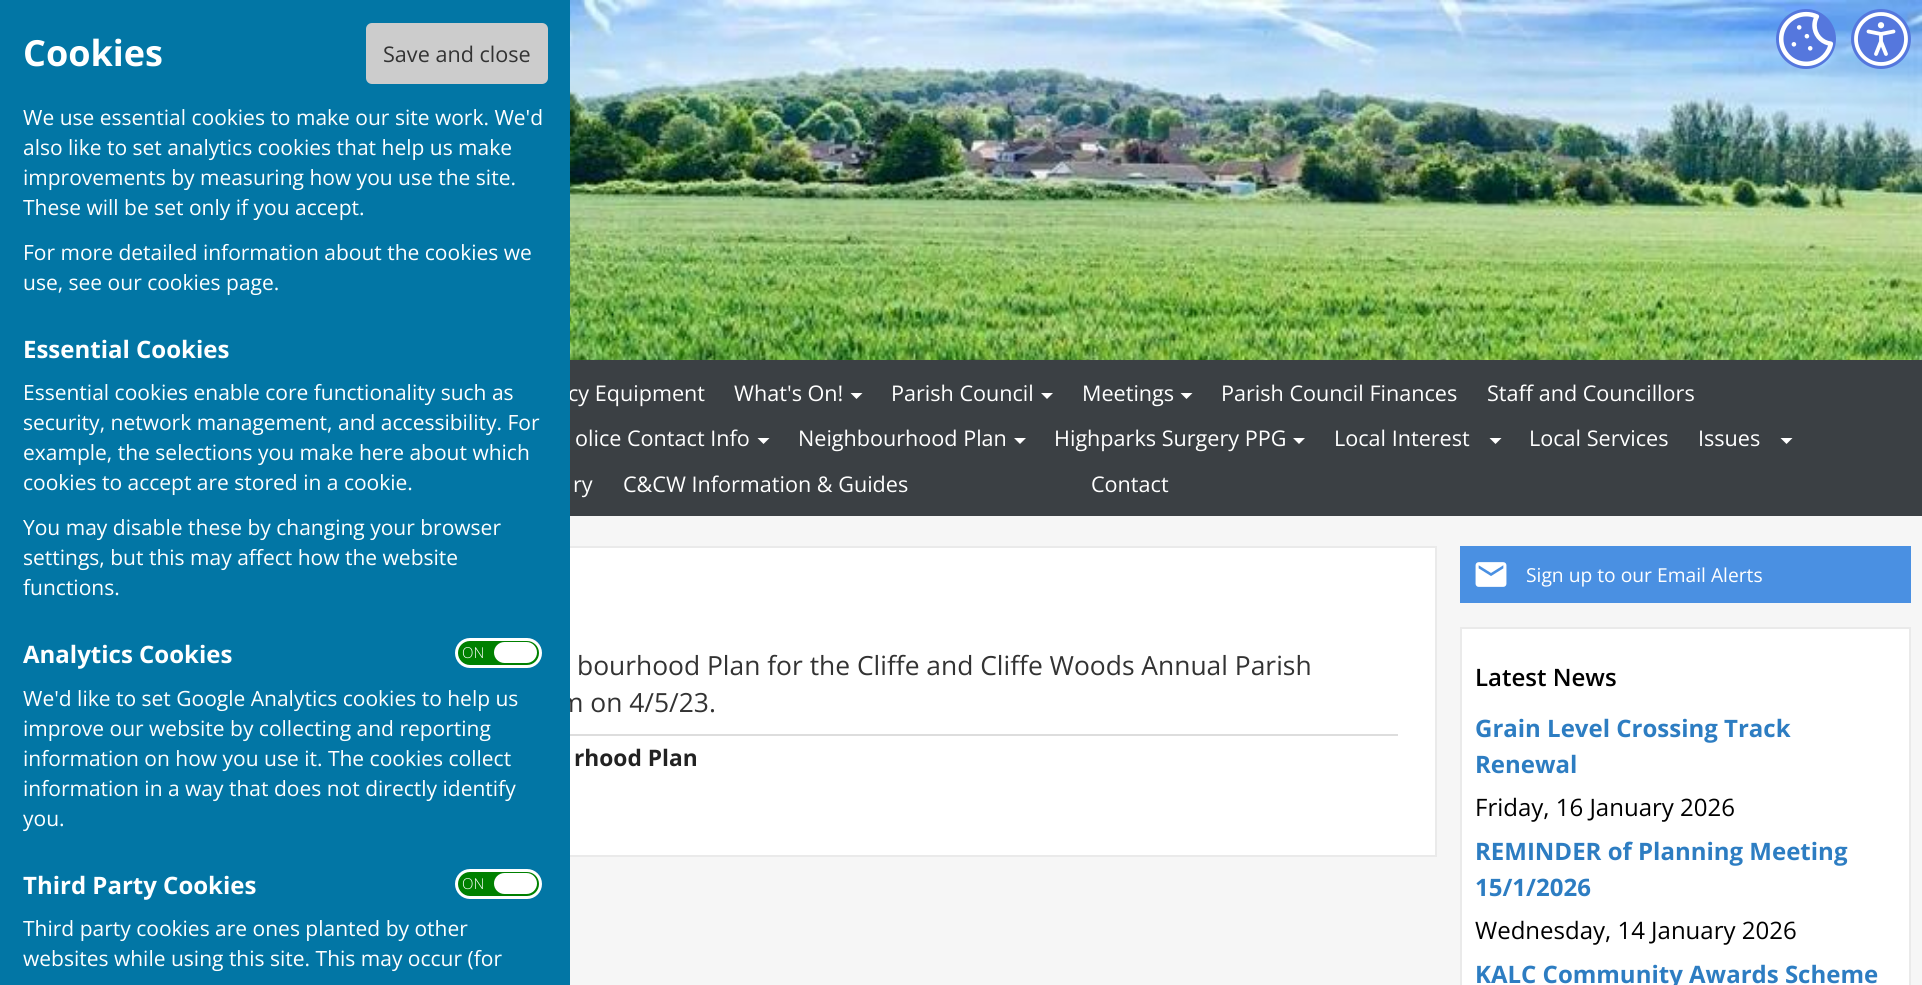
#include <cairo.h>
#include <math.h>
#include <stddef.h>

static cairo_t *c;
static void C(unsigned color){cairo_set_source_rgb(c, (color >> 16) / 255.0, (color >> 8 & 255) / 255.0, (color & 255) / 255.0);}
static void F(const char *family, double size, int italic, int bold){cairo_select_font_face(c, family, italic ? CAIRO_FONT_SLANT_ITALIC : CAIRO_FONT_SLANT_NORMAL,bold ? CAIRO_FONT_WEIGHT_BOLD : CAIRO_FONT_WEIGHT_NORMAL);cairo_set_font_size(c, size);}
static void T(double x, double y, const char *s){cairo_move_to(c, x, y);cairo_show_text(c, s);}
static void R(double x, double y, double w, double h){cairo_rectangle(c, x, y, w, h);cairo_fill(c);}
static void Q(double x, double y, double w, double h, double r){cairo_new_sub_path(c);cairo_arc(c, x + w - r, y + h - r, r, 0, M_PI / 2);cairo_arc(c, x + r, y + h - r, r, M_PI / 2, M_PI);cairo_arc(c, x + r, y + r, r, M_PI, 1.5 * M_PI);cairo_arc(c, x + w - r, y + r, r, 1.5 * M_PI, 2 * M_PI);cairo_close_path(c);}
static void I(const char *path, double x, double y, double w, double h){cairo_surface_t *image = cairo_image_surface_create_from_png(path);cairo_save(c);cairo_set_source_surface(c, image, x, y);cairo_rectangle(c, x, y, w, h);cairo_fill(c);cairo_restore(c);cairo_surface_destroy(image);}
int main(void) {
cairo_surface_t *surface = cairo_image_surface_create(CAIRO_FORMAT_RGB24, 1922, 985);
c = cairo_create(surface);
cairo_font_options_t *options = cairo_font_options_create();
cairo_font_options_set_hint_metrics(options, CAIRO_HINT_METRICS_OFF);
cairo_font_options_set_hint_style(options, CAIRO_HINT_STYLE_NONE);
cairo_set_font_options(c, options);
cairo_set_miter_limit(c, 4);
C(0xf6f6f6);
cairo_paint(c);
C(0x3b4044);
R(570,360,1352,156);
F("Open Sans",21.6,0,0);
C(0xffffff);
T(568,401,"cy Equipment");
R(570,548,865,307);
cairo_rectangle(c,13,547,1423,309);
C(0xeaeaea);
cairo_stroke(c);
F("Open Sans",26.4,0,0);
C(0x333333);
T(559,712,"m on 4/5/23.");
C(0x0276a5);
R(0,0,570,985);
F("Open Sans",36,0,1);
C(0xffffff);
T(23,66,"Cookies");
C(0xcccccc);
Q(366,23,182,61,6);
cairo_fill(c);
F("Open Sans",21.6,0,0);
C(0x333333);
T(383,62,"Save and close");
F("Open Sans",21,0,0);
C(0xffffff);
T(23,125,"We use essential cookies to make our site work. We'd");
T(23,155,"also like to set analytics cookies that help us make");
T(23,185,"improvements by measuring how you use the site.");
T(23,215,"These will be set only if you accept.");
T(23,260,"For more detailed information about the cookies we");
T(23,290,"use, see our cookies page.");
F("Open Sans",24,0,1);
T(23,358,"Essential Cookies");
F("Open Sans",21,0,0);
T(23,400,"Essential cookies enable core functionality such as");
T(23,430,"security, network management, and accessibility. For");
T(23,460,"example, the selections you make here about which");
T(23,490,"cookies to accept are stored in a cookie.");
T(23,535,"You may disable these by changing your browser");
T(23,565,"settings, but this may affect how the website");
T(23,595,"functions.");
F("Open Sans",24,0,1);
T(23,663,"Analytics Cookies");
C(0x008000);
Q(456.5,639.5,84,27,13.5);
cairo_fill_preserve(c);
C(0xffffff);
cairo_set_line_width(c,3);
cairo_stroke(c);
F("Open Sans Light",15,0,0);
T(462,658,"ON");
Q(494,642,43,21,10.5);
cairo_fill(c);
F("Open Sans",21,0,0);
T(23,706,"We'd like to set Google Analytics cookies to help us");
T(23,736,"improve our website by collecting and reporting");
T(23,766,"information on how you use it. The cookies collect");
T(23,796,"information in a way that does not directly identify");
T(23,826,"you.");
F("Open Sans",24,0,1);
T(23,894,"Third Party Cookies");
C(0x008000);
Q(456.5,870.5,84,27,13.5);
cairo_fill_preserve(c);
C(0xffffff);
cairo_stroke(c);
F("Open Sans Light",15,0,0);
T(462,889,"ON");
Q(494,873,43,21,10.5);
cairo_fill(c);
F("Open Sans",21,0,0);
T(23,936,"Third party cookies are ones planted by other");
T(23,966,"websites while using this site. This may occur (for");
I("1.png",570,0,1352,360);
C(0x5577dd);
cairo_arc(c,1806,39,30,0,2 * M_PI);
cairo_fill(c);
I("2.png",1778,11,56,56);
cairo_arc(c,1881,39,30,0,2 * M_PI);
cairo_fill(c);
I("3.png",1854,12,54,54);
F("Open Sans",21.6,0,0);
C(0xffffff);
T(734,401,"What's On!");
cairo_new_path(c);
cairo_move_to(c,850.5,393);
cairo_line_to(c,862.5,393);
cairo_line_to(c,856.5,399);
cairo_close_path(c);
cairo_fill(c);
T(891,401,"Parish Council");
cairo_new_path(c);
cairo_move_to(c,1041,393);
cairo_line_to(c,1053,393);
cairo_line_to(c,1047,399);
cairo_close_path(c);
cairo_fill(c);
T(1082,401,"Meetings");
cairo_new_path(c);
cairo_move_to(c,1180.5,393);
cairo_line_to(c,1192.5,393);
cairo_line_to(c,1186.5,399);
cairo_close_path(c);
cairo_fill(c);
T(1221,401,"Parish Council Finances");
T(1487,401,"Staff and Councillors");
T(575,446,"olice Contact Info");
cairo_new_path(c);
cairo_move_to(c,757.5,438);
cairo_line_to(c,769.5,438);
cairo_line_to(c,763.5,444);
cairo_close_path(c);
cairo_fill(c);
T(798,446,"Neighbourhood Plan");
cairo_new_path(c);
cairo_move_to(c,1014,438);
cairo_line_to(c,1026,438);
cairo_line_to(c,1020,444);
cairo_close_path(c);
cairo_fill(c);
T(1054,446,"Highparks Surgery PPG");
cairo_new_path(c);
cairo_move_to(c,1293,438);
cairo_line_to(c,1305,438);
cairo_line_to(c,1299,444);
cairo_close_path(c);
cairo_fill(c);
T(1334,446,"Local Interest");
cairo_new_path(c);
cairo_move_to(c,1489.5,438);
cairo_line_to(c,1501.5,438);
cairo_line_to(c,1495.5,444);
cairo_close_path(c);
cairo_fill(c);
T(1529,446,"Local Services");
T(1698,446,"Issues");
cairo_new_path(c);
cairo_move_to(c,1780.5,438);
cairo_line_to(c,1792.5,438);
cairo_line_to(c,1786.5,444);
cairo_close_path(c);
cairo_fill(c);
T(573,492,"ry");
T(623,492,"C&CW Information & Guides");
T(1091,492,"Contact");
F("Open Sans",26.4,0,0);
C(0x333333);
T(577,675,"bourhood Plan for the Cliffe and Cliffe Woods Annual Parish");
C(0xdddddd);
R(570,734,828,2);
F("Open Sans",22.75,0,1);
C(0x222222);
T(574,766,"rhood Plan");
C(0x4a90e2);
R(1460,546,451,57);
I("4.png",1475,562,32,25);
F("Open Sans",19.25,0,0);
C(0xffffff);
T(1526,582,"Sign up to our Email Alerts");
cairo_rectangle(c,1461,628,449,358);
cairo_fill_preserve(c);
C(0xeaeaea);
cairo_set_line_width(c,2);
cairo_stroke(c);
F("Open Sans SemiBold",24,0,0);
C(0x000000);
T(1475,686,"Latest News");
F("Open Sans",24,0,1);
C(0x2d7dc2);
T(1475,737,"Grain Level Crossing Track");
T(1475,773,"Renewal");
F("Open Sans",24,0,0);
C(0x000000);
T(1475,816,"Friday, 16 January 2026");
F("Open Sans",24,0,1);
C(0x2d7dc2);
T(1475,860,"REMINDER of Planning Meeting");
T(1475,896,"15/1/2026");
F("Open Sans",24,0,0);
C(0x000000);
T(1475,939,"Wednesday, 14 January 2026");
F("Open Sans",24,0,1);
C(0x2d7dc2);
T(1475,983,"KALC Community Awards Scheme");
cairo_surface_write_to_png(surface, "o.png");
cairo_font_options_destroy(options);
cairo_destroy(c);
cairo_surface_destroy(surface);
return 0;
}
